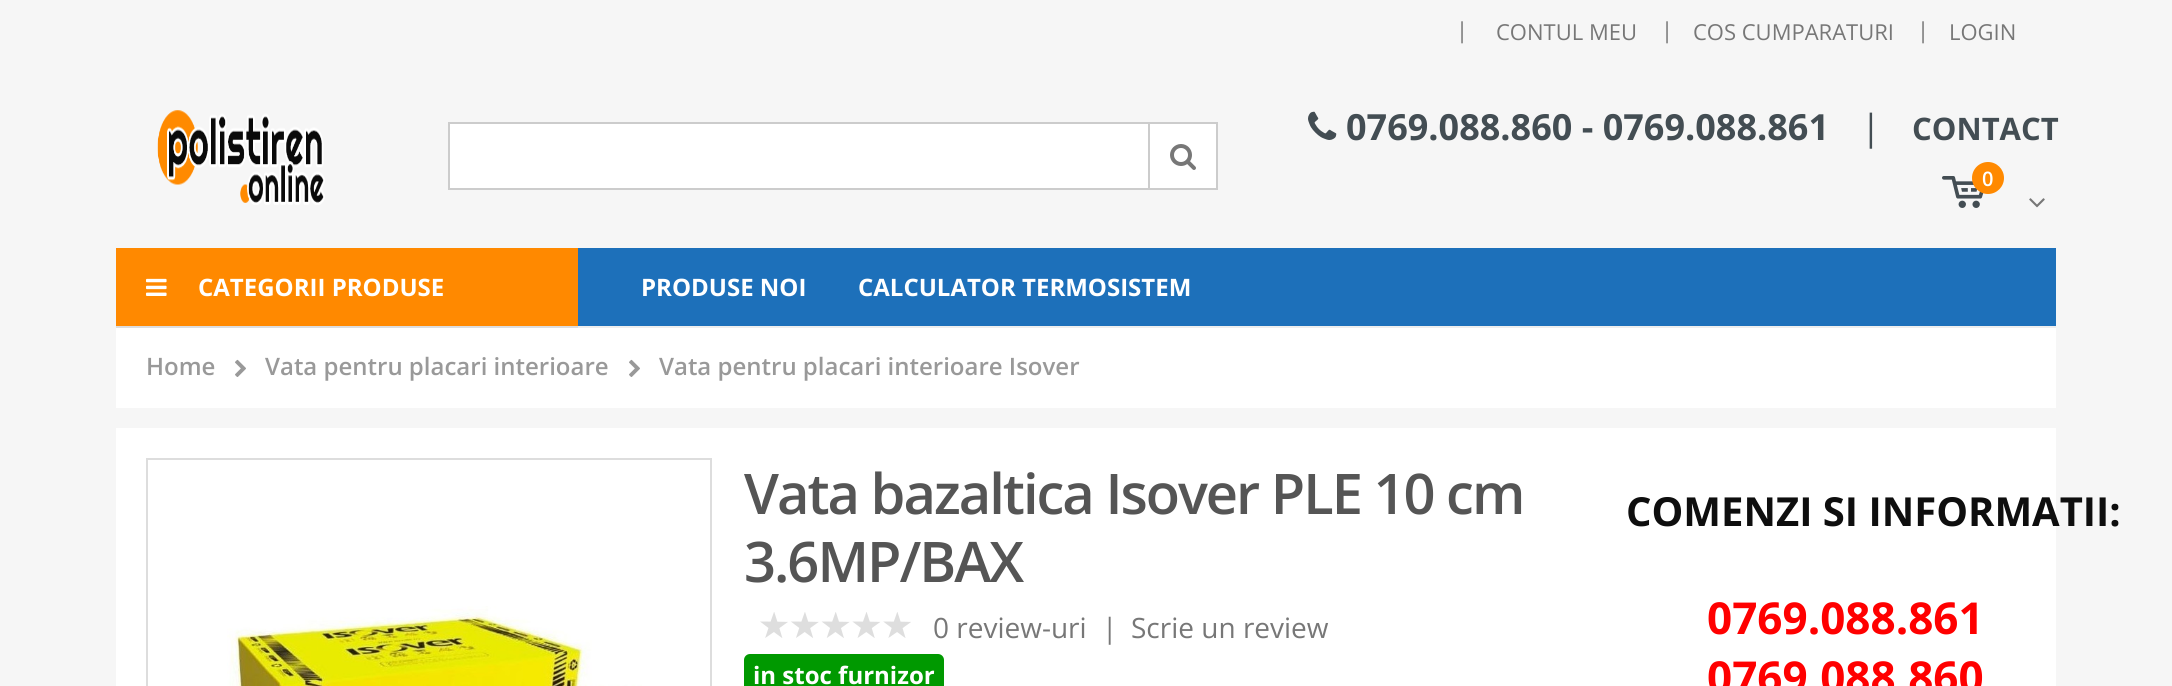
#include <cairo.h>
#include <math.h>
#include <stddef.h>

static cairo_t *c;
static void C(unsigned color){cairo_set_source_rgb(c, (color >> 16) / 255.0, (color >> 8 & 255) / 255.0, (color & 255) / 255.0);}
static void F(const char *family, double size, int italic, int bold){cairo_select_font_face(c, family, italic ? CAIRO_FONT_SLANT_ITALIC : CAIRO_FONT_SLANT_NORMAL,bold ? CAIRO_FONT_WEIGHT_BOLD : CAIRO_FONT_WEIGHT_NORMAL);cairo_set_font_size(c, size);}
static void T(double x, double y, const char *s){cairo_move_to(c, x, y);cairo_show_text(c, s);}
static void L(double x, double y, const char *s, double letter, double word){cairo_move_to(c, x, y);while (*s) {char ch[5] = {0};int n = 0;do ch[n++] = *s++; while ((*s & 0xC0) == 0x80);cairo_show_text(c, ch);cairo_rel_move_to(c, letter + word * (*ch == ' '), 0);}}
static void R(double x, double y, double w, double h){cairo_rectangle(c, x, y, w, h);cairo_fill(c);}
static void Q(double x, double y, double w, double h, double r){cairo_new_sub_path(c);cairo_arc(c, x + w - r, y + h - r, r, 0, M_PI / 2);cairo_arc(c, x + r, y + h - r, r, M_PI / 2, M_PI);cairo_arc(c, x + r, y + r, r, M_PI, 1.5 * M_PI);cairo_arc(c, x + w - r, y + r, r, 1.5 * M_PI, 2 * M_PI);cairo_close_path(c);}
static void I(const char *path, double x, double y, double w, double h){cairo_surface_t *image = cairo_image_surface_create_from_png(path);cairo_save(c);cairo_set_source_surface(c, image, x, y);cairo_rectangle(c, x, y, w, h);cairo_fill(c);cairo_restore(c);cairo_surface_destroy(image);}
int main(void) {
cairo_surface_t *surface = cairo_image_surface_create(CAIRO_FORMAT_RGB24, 2172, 686);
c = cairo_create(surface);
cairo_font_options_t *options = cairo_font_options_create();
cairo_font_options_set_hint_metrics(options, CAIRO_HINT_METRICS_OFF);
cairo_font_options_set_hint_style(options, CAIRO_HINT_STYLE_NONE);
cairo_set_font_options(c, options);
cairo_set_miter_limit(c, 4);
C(0xf6f6f6);
cairo_paint(c);
F("Open Sans",22,0,0);
C(0x777777);
T(1456,38,"|");
T(1496,40,"CONTUL MEU");
T(1661,38,"|");
T(1693,40,"COS CUMPARATURI");
T(1917,38,"|");
T(1949,40,"LOGIN");
I("1.png",157,110,168,95);
C(0xffffff);
cairo_rectangle(c,449,123,768,66);
cairo_fill_preserve(c);
C(0xcccccc);
cairo_stroke(c);
R(1148,124,2,64);
I("2.png",1170,144,26,26);
I("3.png",1308,111,29,29);
F("Open Sans",36,0,1);
C(0x434d53);
T(1346,140,"0769.088.860 - 0769.088.861");
F("Open Sans",36,0,0);
T(1861,140,"|");
F("Open Sans",31,0,1);
T(1912,140,"CONTACT");
I("4.png",1942,176,42,32);
C(0xff8900);
cairo_arc(c,1988,178,16,0,2 * M_PI);
cairo_fill(c);
F("Open Sans SemiBold",20,0,0);
C(0xffffff);
T(1982,186,"0");
I("5.png",2029,198,16,10);
C(0x1d70ba);
R(578,248,1478,78);
C(0xeeeeee);
R(578,326,1478,2);
C(0xff8900);
R(116,248,462,78);
C(0xdddddd);
R(116,326,462,2);
I("6.png",146,278,21,18);
F("Open Sans",24,0,1);
C(0xffffff);
T(198,296,"CATEGORII PRODUSE");
T(641,296,"PRODUSE NOI");
T(858,296,"CALCULATOR TERMOSISTEM");
R(116,328,1940,80);
F("Open Sans SemiBold",24,0,0);
C(0x999999);
T(146,375,"Home");
I("7.png",235,359,11,18);
T(265,375,"Vata pentru placari interioare");
I("7.png",629,359,11,18);
T(659,375,"Vata pentru placari interioare Isover");
C(0xffffff);
R(116,428,1940,258);
cairo_rectangle(c,147,459,564,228);
C(0xdddddd);
cairo_stroke(c);
I("8.png",227,606,415,80);
F("Open Sans SemiBold",56,0,0);
C(0x555555);
L(744,514,"Vata bazaltica Isover PLE 10 cm",-2,0);
L(744,582,"3.6MP/BAX",-2,0);
I("9.png",760,612,151,26);
F("Open Sans",28,0,0);
C(0x777777);
T(933,638,"0 review-uri");
T(1102,638,"|");
T(1131,638,"Scrie un review");
C(0x009900);
Q(744,654,200,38,6);
cairo_fill(c);
F("Open Sans",24,0,1);
C(0xffffff);
T(753,684,"in stoc furnizor");
F("Open Sans",40,0,1);
C(0x0e0e0e);
T(1626,526,"COMENZI SI INFORMATII:");
F("Open Sans",44,0,1);
C(0xff0000);
T(1707,634,"0769.088.861");
T(1707,693,"0769.088.860");
cairo_surface_write_to_png(surface, "o.png");
cairo_font_options_destroy(options);
cairo_destroy(c);
cairo_surface_destroy(surface);
return 0;
}
